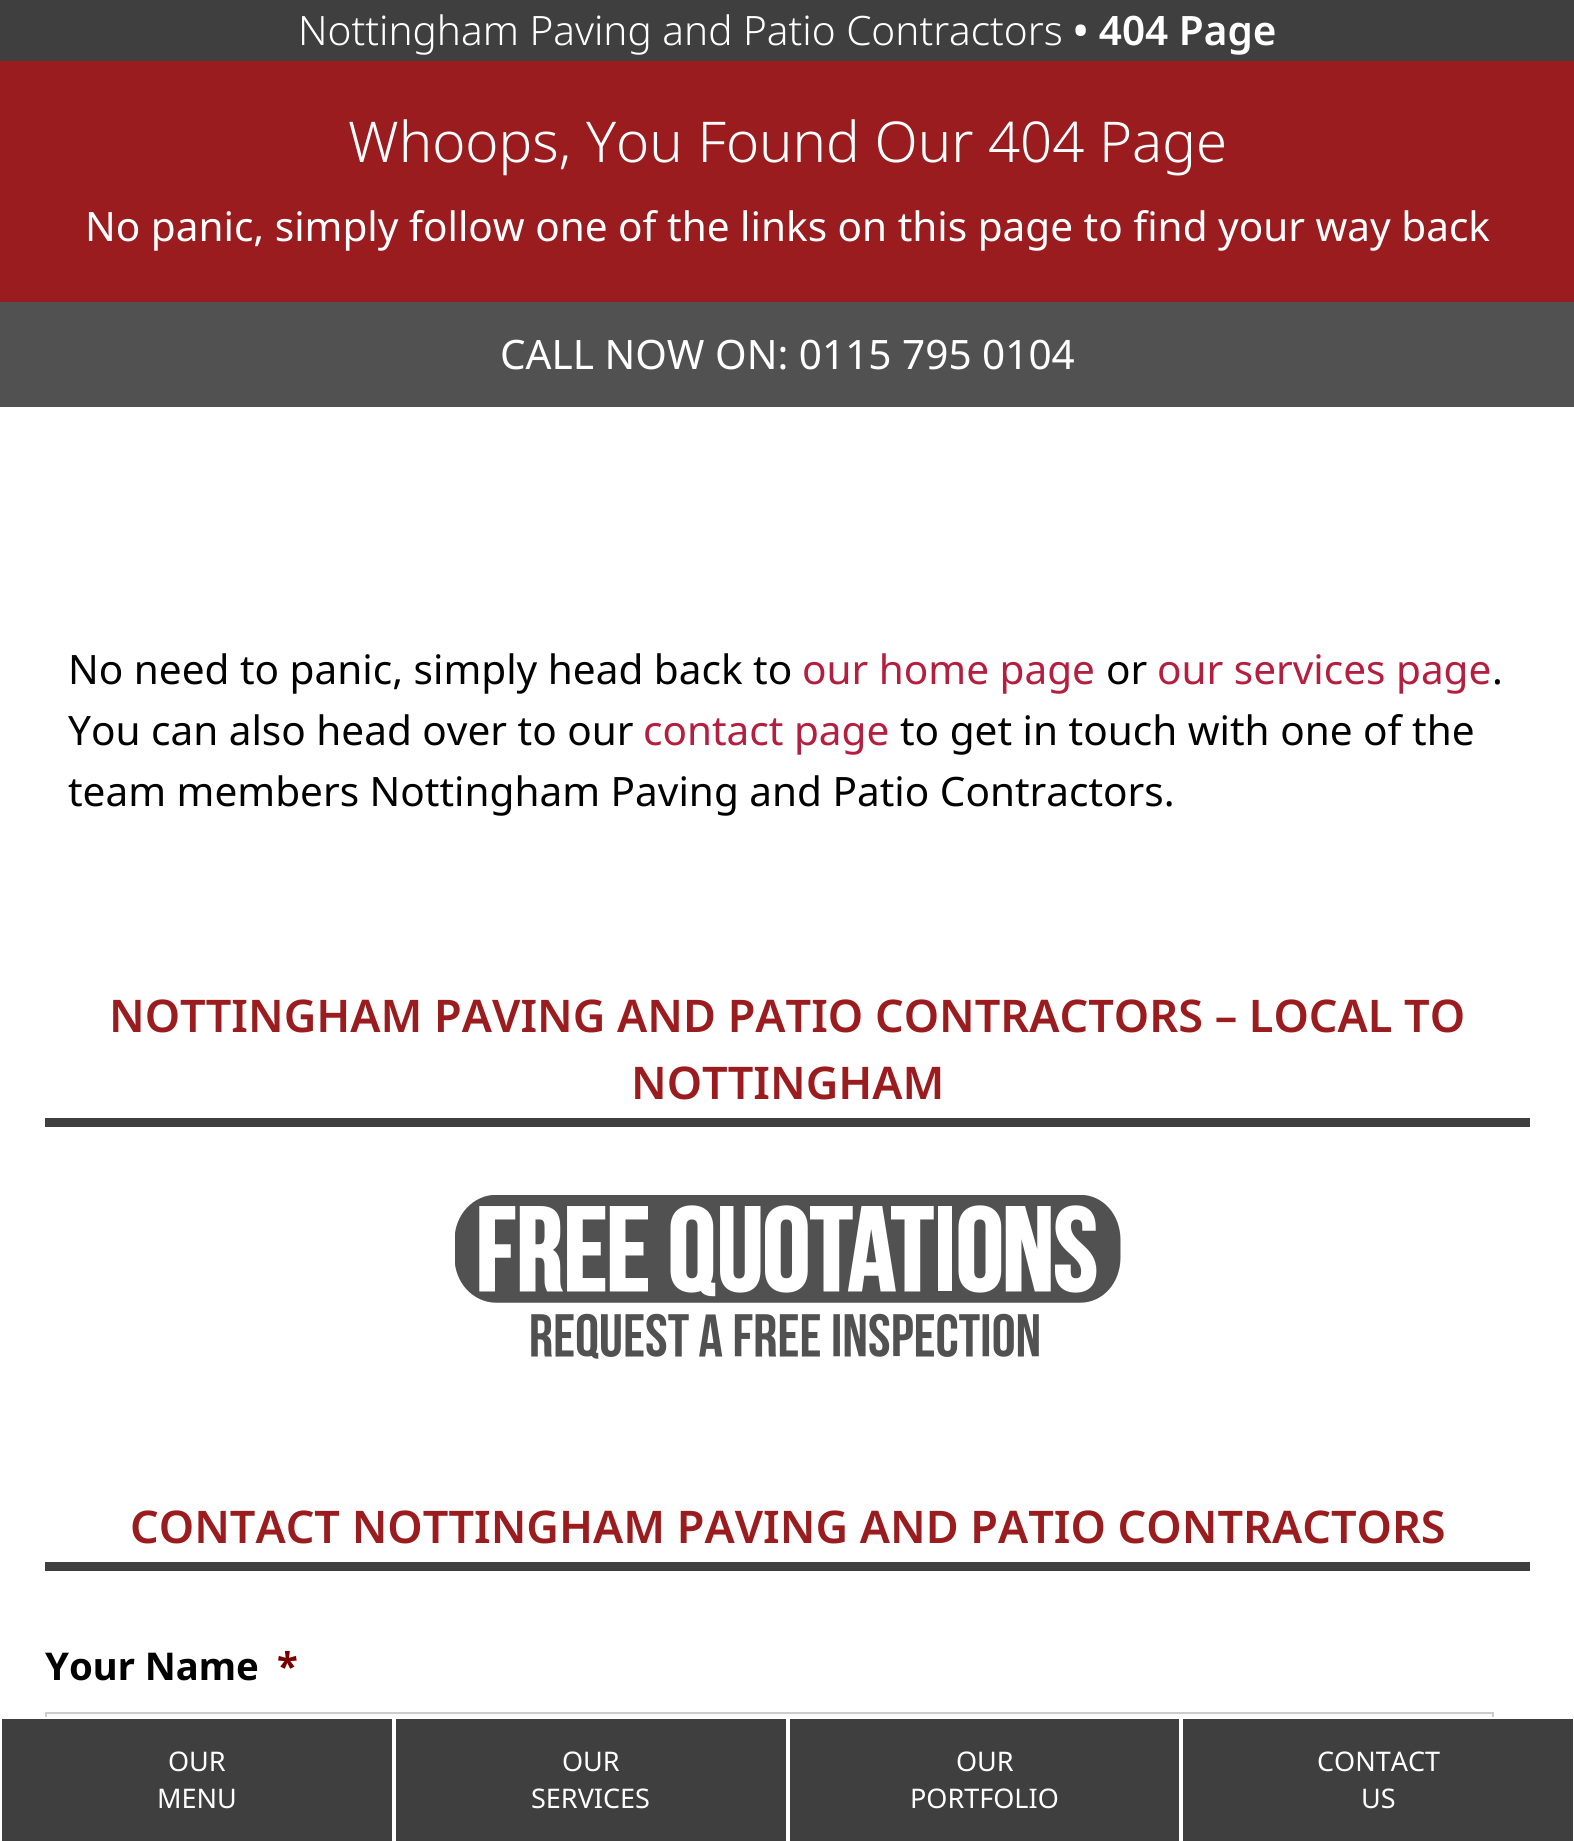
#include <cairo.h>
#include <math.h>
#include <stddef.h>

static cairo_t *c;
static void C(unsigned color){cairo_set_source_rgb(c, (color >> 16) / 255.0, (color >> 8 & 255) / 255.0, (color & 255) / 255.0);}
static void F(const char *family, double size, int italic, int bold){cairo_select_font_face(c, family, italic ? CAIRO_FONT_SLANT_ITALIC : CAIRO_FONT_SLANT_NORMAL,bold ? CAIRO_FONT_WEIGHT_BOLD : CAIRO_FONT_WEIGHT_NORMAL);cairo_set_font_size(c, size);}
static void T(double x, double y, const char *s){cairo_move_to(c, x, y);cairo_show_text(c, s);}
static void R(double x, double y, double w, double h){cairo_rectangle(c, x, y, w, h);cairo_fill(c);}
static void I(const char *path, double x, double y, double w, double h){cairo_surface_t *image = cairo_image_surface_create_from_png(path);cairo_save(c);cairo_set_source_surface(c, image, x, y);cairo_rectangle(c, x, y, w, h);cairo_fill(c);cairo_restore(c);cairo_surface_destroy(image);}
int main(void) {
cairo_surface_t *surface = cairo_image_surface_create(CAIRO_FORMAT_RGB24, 1574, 1841);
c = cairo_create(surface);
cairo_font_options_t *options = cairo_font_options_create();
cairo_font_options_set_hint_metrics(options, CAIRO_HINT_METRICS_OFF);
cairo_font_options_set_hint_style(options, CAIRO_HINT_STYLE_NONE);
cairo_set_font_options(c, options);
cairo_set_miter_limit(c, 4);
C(0xffffff);
cairo_paint(c);
C(0x3f3f3f);
R(0,0,1574,61);
F("Noto Sans Light",40.5,0,0);
C(0xffffff);
T(298,45,"Nottingham Paving and Patio Contractors");
F("Noto Sans SemiBold",40.5,0,0);
T(1073,45,"• 404 Page");
C(0x9b1c1f);
R(0,61,1574,241);
F("Noto Sans Light",56.25,0,0);
C(0xffffff);
T(348,162,"Whoops, You Found Our 404 Page");
F("Noto Sans",40.5,0,0);
T(85,241,"No panic, simply follow one of the links on this page to find your way back");
C(0x515151);
R(0,302,1574,105);
C(0xffffff);
T(500,369,"CALL NOW ON: 0115 795 0104");
C(0x020202);
T(68,684,"No need to panic, simply head back to");
C(0xb51e3f);
T(802,684,"our home page");
C(0x020202);
T(1106,684,"or");
C(0xb51e3f);
T(1157,684,"our services page");
C(0x020202);
T(1492,684,".");
T(68,745,"You can also head over to our");
C(0xb51e3f);
T(643,745,"contact page");
C(0x020202);
T(900,745,"to get in touch with one of the");
T(68,806,"team members Nottingham Paving and Patio Contractors.");
C(0x3f3f3f);
R(45,1118,1485,9);
F("Noto Sans SemiBold",45,0,0);
C(0x9b1c1f);
T(109,1032,"NOTTINGHAM PAVING AND PATIO CONTRACTORS – LOCAL TO");
T(631,1099,"NOTTINGHAM");
I("1.png",455,1195,666,164);
C(0x3f3f3f);
R(45,1562,1485,9);
C(0x9b1c1f);
T(130,1543,"CONTACT NOTTINGHAM PAVING AND PATIO CONTRACTORS");
F("Noto Sans",38.25,0,1);
C(0x020202);
T(45,1680,"Your Name");
C(0x790000);
T(277,1680,"*");
C(0xfafafa);
R(47,1714,1445,3);
cairo_rectangle(c,46,1713,1447,84);
C(0xcccccc);
cairo_stroke(c);
C(0x3f3f3f);
cairo_rectangle(c,1,1718,392,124);
cairo_fill_preserve(c);
C(0xffffff);
cairo_stroke(c);
F("Noto Sans",27,0,0);
T(168,1771,"OUR");
T(157,1808,"MENU");
C(0x3f3f3f);
cairo_rectangle(c,395,1718,392,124);
cairo_fill_preserve(c);
C(0xffffff);
cairo_stroke(c);
T(562,1771,"OUR");
T(531,1808,"SERVICES");
C(0x3f3f3f);
cairo_rectangle(c,789,1718,391,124);
cairo_fill_preserve(c);
C(0xffffff);
cairo_stroke(c);
T(956,1771,"OUR");
T(910,1808,"PORTFOLIO");
C(0x3f3f3f);
cairo_rectangle(c,1182,1718,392,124);
cairo_fill_preserve(c);
C(0xffffff);
cairo_stroke(c);
T(1317,1771,"CONTACT");
T(1361,1808,"US");
cairo_surface_write_to_png(surface, "o.png");
cairo_font_options_destroy(options);
cairo_destroy(c);
cairo_surface_destroy(surface);
return 0;
}
